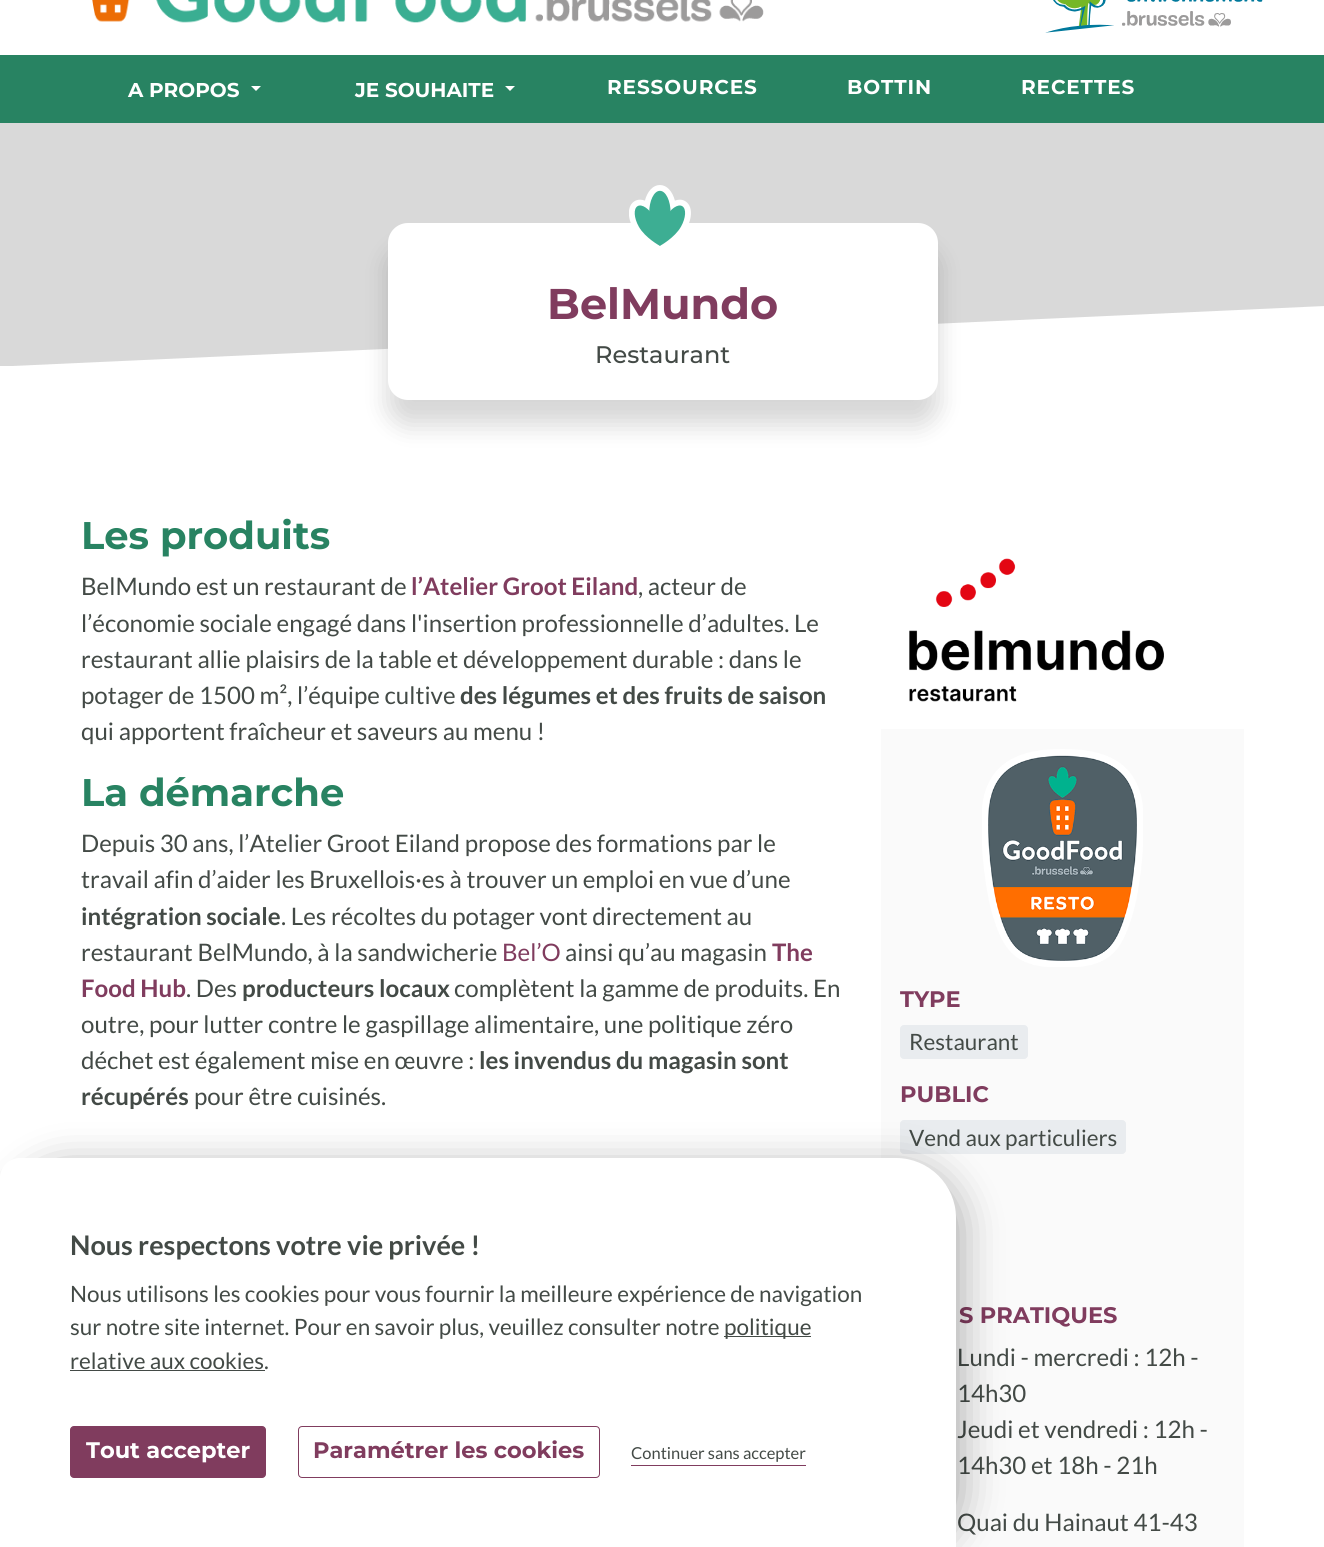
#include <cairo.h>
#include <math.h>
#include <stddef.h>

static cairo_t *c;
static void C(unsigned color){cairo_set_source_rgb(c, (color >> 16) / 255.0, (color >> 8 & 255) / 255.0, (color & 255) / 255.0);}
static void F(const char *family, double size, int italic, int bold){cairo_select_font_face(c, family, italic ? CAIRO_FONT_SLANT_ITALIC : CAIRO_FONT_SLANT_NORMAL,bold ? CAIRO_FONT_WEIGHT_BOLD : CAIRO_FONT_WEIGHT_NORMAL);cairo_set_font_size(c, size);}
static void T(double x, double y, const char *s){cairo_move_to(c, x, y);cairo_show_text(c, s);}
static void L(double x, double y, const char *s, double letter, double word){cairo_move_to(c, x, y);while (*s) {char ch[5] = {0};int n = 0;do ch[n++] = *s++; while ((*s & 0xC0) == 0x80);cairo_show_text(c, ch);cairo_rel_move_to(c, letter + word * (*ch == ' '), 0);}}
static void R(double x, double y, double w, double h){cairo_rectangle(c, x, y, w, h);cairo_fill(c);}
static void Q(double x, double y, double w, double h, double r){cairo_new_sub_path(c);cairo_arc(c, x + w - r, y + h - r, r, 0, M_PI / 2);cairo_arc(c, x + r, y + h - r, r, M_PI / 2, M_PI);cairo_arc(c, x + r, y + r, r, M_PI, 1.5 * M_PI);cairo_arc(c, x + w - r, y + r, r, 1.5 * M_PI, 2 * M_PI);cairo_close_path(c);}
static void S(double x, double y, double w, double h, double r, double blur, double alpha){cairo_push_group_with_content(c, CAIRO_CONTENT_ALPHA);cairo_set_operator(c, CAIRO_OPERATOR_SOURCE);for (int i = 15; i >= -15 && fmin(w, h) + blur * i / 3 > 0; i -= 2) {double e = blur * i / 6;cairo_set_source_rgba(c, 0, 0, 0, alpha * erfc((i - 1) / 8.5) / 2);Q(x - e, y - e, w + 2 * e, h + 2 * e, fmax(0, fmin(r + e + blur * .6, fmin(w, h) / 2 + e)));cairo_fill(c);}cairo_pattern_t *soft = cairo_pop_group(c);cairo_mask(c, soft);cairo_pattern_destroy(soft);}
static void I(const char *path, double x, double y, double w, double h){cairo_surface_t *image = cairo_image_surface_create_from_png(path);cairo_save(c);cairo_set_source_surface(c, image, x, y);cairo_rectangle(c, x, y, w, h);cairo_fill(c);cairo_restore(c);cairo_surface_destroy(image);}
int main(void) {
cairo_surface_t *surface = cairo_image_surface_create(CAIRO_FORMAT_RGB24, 1324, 1547);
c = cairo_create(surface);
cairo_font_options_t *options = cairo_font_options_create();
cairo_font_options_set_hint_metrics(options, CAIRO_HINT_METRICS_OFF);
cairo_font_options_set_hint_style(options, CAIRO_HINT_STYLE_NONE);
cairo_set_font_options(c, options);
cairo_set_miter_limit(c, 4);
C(0xffffff);
cairo_paint(c);
I("1.png",92,0,672,23);
I("2.png",1045,0,218,33);
C(0x288362);
R(0,55,1324,68);
F("Montserrat",20,0,1);
C(0xffffff);
T(128,97,"A PROPOS");
cairo_new_path(c);
cairo_move_to(c,251,86);
cairo_line_to(c,261,86);
cairo_line_to(c,256,91);
cairo_close_path(c);
cairo_fill(c);
T(355,97,"JE SOUHAITE");
cairo_new_path(c);
cairo_move_to(c,505,86);
cairo_line_to(c,515,86);
cairo_line_to(c,510,91);
cairo_close_path(c);
cairo_fill(c);
L(607,94,"RESSOURCES",.9,0);
L(847,94,"BOTTIN",.9,0);
L(1021,94,"RECETTES",.9,0);
C(0xd9d9d9);
cairo_new_path(c);
cairo_move_to(c,0,123);
cairo_line_to(c,0,366);
cairo_line_to(c,12,366);
cairo_line_to(c,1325,306);
cairo_line_to(c,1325,123);
cairo_close_path(c);
cairo_fill(c);
C(0x000000);
S(388,248,550,177,20,12.5,.16);
C(0xffffff);
Q(388,223,550,177,20);
cairo_fill(c);
I("3.png",629,185,62,61);
F("Montserrat",43,0,1);
C(0x803c5e);
T(547,319,"BelMundo");
F("Montserrat Medium",24,0,0);
C(0x434a46);
T(595,363,"Restaurant");
F("Montserrat",38.5,0,1);
C(0x288362);
T(81,549,"Les produits");
F("Lato",24.1,0,0);
C(0x434a46);
T(81,595,"BelMundo est un restaurant de");
F("Lato",24.1,0,1);
C(0x803c5e);
T(411,595,"l’Atelier Groot Eiland");
F("Lato",24.1,0,0);
C(0x434a46);
T(638,595,", acteur de");
T(81,632,"l’économie sociale engagé dans l'insertion professionnelle d’adultes. Le");
T(81,668,"restaurant allie plaisirs de la table et développement durable : dans le");
T(81,704,"potager de 1500 m², l’équipe cultive");
F("Lato",24.1,0,1);
T(460,704,"des légumes et des fruits de saison");
F("Lato",24.1,0,0);
T(81,740,"qui apportent fraîcheur et saveurs au menu !");
F("Montserrat",38.5,0,1);
C(0x288362);
T(81,806,"La démarche");
F("Lato",24.1,0,0);
C(0x434a46);
T(81,852,"Depuis 30 ans, l’Atelier Groot Eiland propose des formations par le");
T(81,888,"travail afin d’aider les Bruxellois·es à trouver un emploi en vue d’une");
F("Lato",24.1,0,1);
T(81,925,"intégration sociale");
F("Lato",24.1,0,0);
T(281,925,". Les récoltes du potager vont directement au");
T(81,961,"restaurant BelMundo, à la sandwicherie");
C(0x803c5e);
T(502,961,"Bel’O");
C(0x434a46);
T(565,961,"ainsi qu’au magasin");
F("Lato",24.1,0,1);
C(0x803c5e);
T(772,961,"The");
T(81,997,"Food Hub");
F("Lato",24.1,0,0);
C(0x434a46);
T(186,997,". Des");
F("Lato",24.1,0,1);
T(242,997,"producteurs locaux");
F("Lato",24.1,0,0);
T(454,997,"complètent la gamme de produits. En");
T(81,1033,"outre, pour lutter contre le gaspillage alimentaire, une politique zéro");
T(81,1069,"déchet est également mise en œuvre :");
F("Lato",24.1,0,1);
T(479,1069,"les invendus du magasin sont");
T(81,1105,"récupérés");
F("Lato",24.1,0,0);
T(194,1105,"pour être cuisinés.");
I("4.png",909,558,255,144);
C(0xfafafa);
R(881,729,363,574);
I("5.png",982,749,161,218);
F("Montserrat",22.5,0,1);
C(0x803c5e);
T(900,1007,"TYPE");
C(0xe9ecef);
Q(900,1025,128,34,4);
cairo_fill(c);
F("Lato",22.5,0,0);
C(0x434a46);
T(909,1050,"Restaurant");
F("Montserrat",22.5,0,1);
C(0x803c5e);
T(900,1102,"PUBLIC");
C(0xe9ecef);
Q(900,1120,226,34,4);
cairo_fill(c);
F("Lato",22.5,0,0);
C(0x434a46);
T(909,1146,"Vend aux particuliers");
C(0xfafafa);
R(956,1303,288,244);
F("Montserrat",22.5,0,1);
C(0x803c5e);
T(959,1323,"S PRATIQUES");
F("Lato",24.1,0,0);
C(0x434a46);
T(957,1366,"Lundi - mercredi : 12h -");
T(957,1402,"14h30");
T(957,1438,"Jeudi et vendredi : 12h -");
T(957,1474,"14h30 et 18h - 21h");
T(957,1531,"Quai du Hainaut 41-43");
C(0x000000);
S(6,1165,957,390,60,20,.3);
C(0xffffff);
cairo_new_path(c);
cairo_move_to(c,20,1158);
cairo_line_to(c,896,1158);
cairo_curve_to(c,929,1158,956,1185,956,1218);
cairo_line_to(c,956,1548);
cairo_line_to(c,0,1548);
cairo_line_to(c,0,1178);
cairo_curve_to(c,0,1167,9,1158,20,1158);
cairo_close_path(c);
cairo_fill(c);
F("Lato",27,0,1);
C(0x434a46);
T(70,1255,"Nous respectons votre vie privée !");
F("Lato",22.5,0,0);
T(70,1302,"Nous utilisons les cookies pour vous fournir la meilleure expérience de navigation");
T(70,1335,"sur notre site internet. Pour en savoir plus, veuillez consulter notre");
R(724,1336,87,1);
T(724,1335,"politique");
T(70,1369,"relative aux cookies.");
R(70,1370,195,1);
C(0x803c5e);
Q(70.5,1426.5,195,51,3.5);
cairo_fill_preserve(c);
cairo_set_line_width(c,1);
cairo_stroke(c);
F("Montserrat",22.5,0,1);
C(0xffffff);
T(86,1458,"Tout accepter");
Q(298.5,1426.5,301,51,3.5);
C(0x803c5e);
cairo_stroke(c);
T(313,1458,"Paramétrer les cookies");
R(631,1465,175,1);
F("Lato",16.5,0,0);
C(0x434a46);
T(631,1459,"Continuer sans accepter");
cairo_surface_write_to_png(surface, "o.png");
cairo_font_options_destroy(options);
cairo_destroy(c);
cairo_surface_destroy(surface);
return 0;
}
